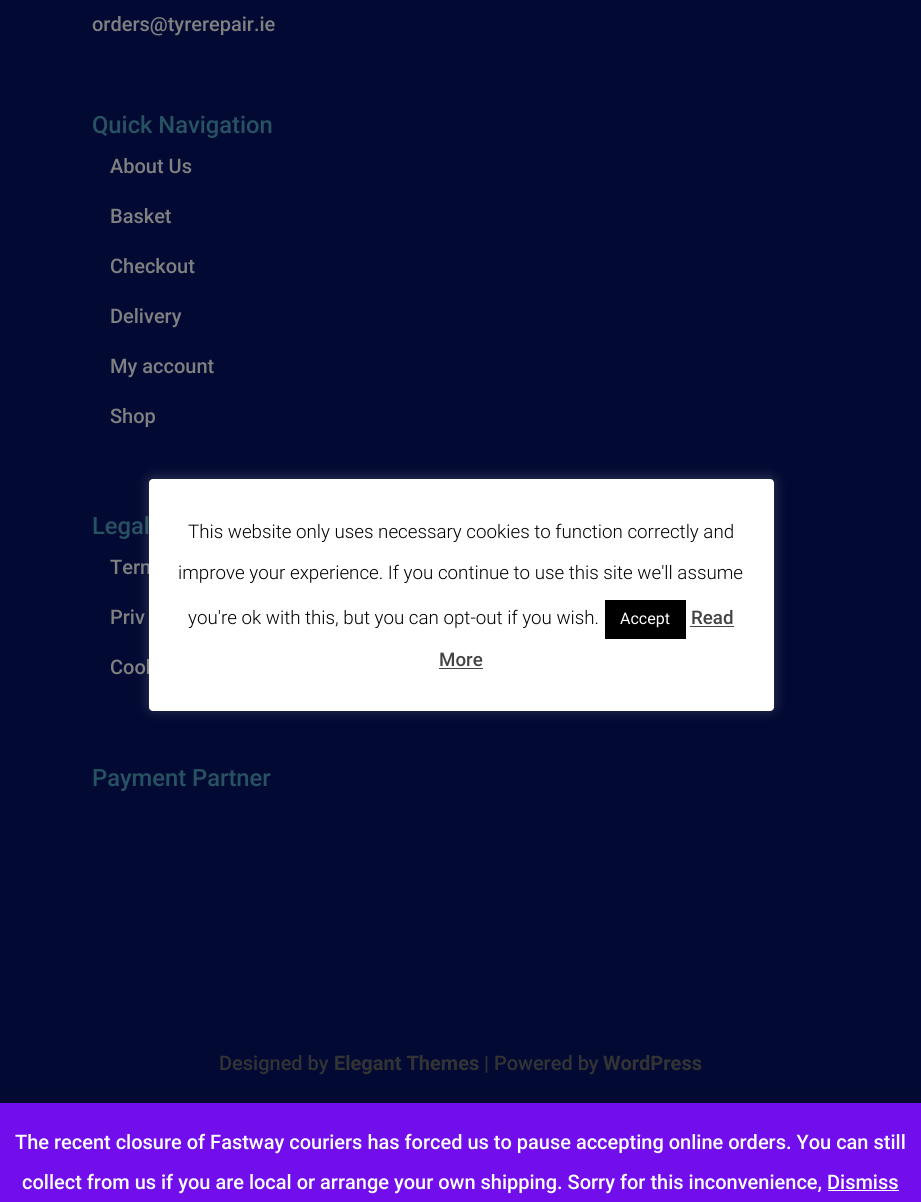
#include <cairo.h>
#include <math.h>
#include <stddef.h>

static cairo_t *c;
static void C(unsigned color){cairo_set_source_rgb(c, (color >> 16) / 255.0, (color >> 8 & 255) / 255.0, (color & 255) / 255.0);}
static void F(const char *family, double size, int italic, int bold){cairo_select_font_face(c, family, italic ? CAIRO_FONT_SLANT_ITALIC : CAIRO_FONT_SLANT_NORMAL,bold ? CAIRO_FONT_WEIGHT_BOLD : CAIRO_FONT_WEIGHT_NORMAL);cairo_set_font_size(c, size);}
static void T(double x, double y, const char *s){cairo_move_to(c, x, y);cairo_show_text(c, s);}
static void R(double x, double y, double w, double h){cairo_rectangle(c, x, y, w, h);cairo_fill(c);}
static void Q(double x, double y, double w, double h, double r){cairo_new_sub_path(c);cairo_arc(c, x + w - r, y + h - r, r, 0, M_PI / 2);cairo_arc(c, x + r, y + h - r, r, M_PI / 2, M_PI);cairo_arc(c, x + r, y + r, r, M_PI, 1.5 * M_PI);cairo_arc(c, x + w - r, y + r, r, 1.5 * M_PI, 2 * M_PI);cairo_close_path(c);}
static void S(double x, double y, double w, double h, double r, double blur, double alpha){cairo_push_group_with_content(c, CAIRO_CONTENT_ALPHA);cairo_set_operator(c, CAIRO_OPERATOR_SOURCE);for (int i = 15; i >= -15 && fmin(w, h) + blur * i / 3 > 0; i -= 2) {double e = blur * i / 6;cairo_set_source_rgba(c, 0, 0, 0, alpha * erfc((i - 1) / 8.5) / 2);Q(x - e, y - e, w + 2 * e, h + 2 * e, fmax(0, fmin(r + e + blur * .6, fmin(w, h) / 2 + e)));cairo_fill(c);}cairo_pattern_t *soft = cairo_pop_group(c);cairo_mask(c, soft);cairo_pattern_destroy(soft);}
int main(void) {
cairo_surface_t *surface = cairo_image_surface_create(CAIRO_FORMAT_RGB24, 921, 1202);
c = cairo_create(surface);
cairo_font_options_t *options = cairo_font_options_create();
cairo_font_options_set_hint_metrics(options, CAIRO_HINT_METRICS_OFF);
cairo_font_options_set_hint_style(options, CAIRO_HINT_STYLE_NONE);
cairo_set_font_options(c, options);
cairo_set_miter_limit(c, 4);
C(0x020a34);
cairo_paint(c);
F("Roboto Medium",20,0,0);
C(0x808080);
T(92,31,"orders@tyrerepair.ie");
F("Roboto Medium",23.75,0,0);
C(0x285261);
T(92,133,"Quick Navigation");
F("Roboto Medium",20,0,0);
C(0x808080);
T(110,173,"About Us");
T(110,223,"Basket");
T(110,273,"Checkout");
T(110,323,"Delivery");
T(110,373,"My account");
T(110,423,"Shop");
F("Roboto Medium",23.75,0,0);
C(0x285261);
T(92,534,"Legal");
F("Roboto Medium",20,0,0);
C(0x808080);
T(110,574,"Term");
T(110,624,"Priv");
T(110,674,"Cook");
F("Roboto Medium",23.75,0,0);
C(0x285261);
T(92,786,"Payment Partner");
F("Roboto Medium",20,0,0);
C(0x333333);
T(219,1070,"Designed by");
F("Roboto",20,0,1);
T(334,1070,"Elegant Themes");
F("Roboto Medium",20,0,0);
T(484,1070,"| Powered by");
F("Roboto",20,0,1);
T(603,1070,"WordPress");
C(0xacabab);
S(149,478,625,232,4,6,.3);
C(0xffffff);
Q(149,479,625,232,4);
cairo_fill(c);
F("Roboto Light",18.75,0,0);
C(0x000000);
T(188,538,"This website only uses necessary cookies to function correctly and");
T(178,579,"improve your experience. If you continue to use this site we'll assume");
T(188,624,"you're ok with this, but you can opt-out if you wish.");
R(605,600,81,39);
F("Roboto",16,0,0);
C(0xffffff);
T(620,624,"Accept");
F("Roboto Medium",18.75,0,0);
C(0x444444);
T(691,624,"Read");
R(690,626,44,1);
T(439,666,"More");
R(439,668,44,1);
C(0x000000);
S(0,1104,921,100,0,10,.2);
C(0x720eec);
R(0,1103,921,99);
F("Roboto Medium",20,0,0);
C(0xffffff);
T(15,1149,"The recent closure of Fastway couriers has forced us to pause accepting online orders. You can still");
T(22,1189,"collect from us if you are local or arrange your own shipping. Sorry for this inconvenience, Dismiss");
C(0xfcfbfe);
R(828,1190,71,1);
cairo_surface_write_to_png(surface, "o.png");
cairo_font_options_destroy(options);
cairo_destroy(c);
cairo_surface_destroy(surface);
return 0;
}
